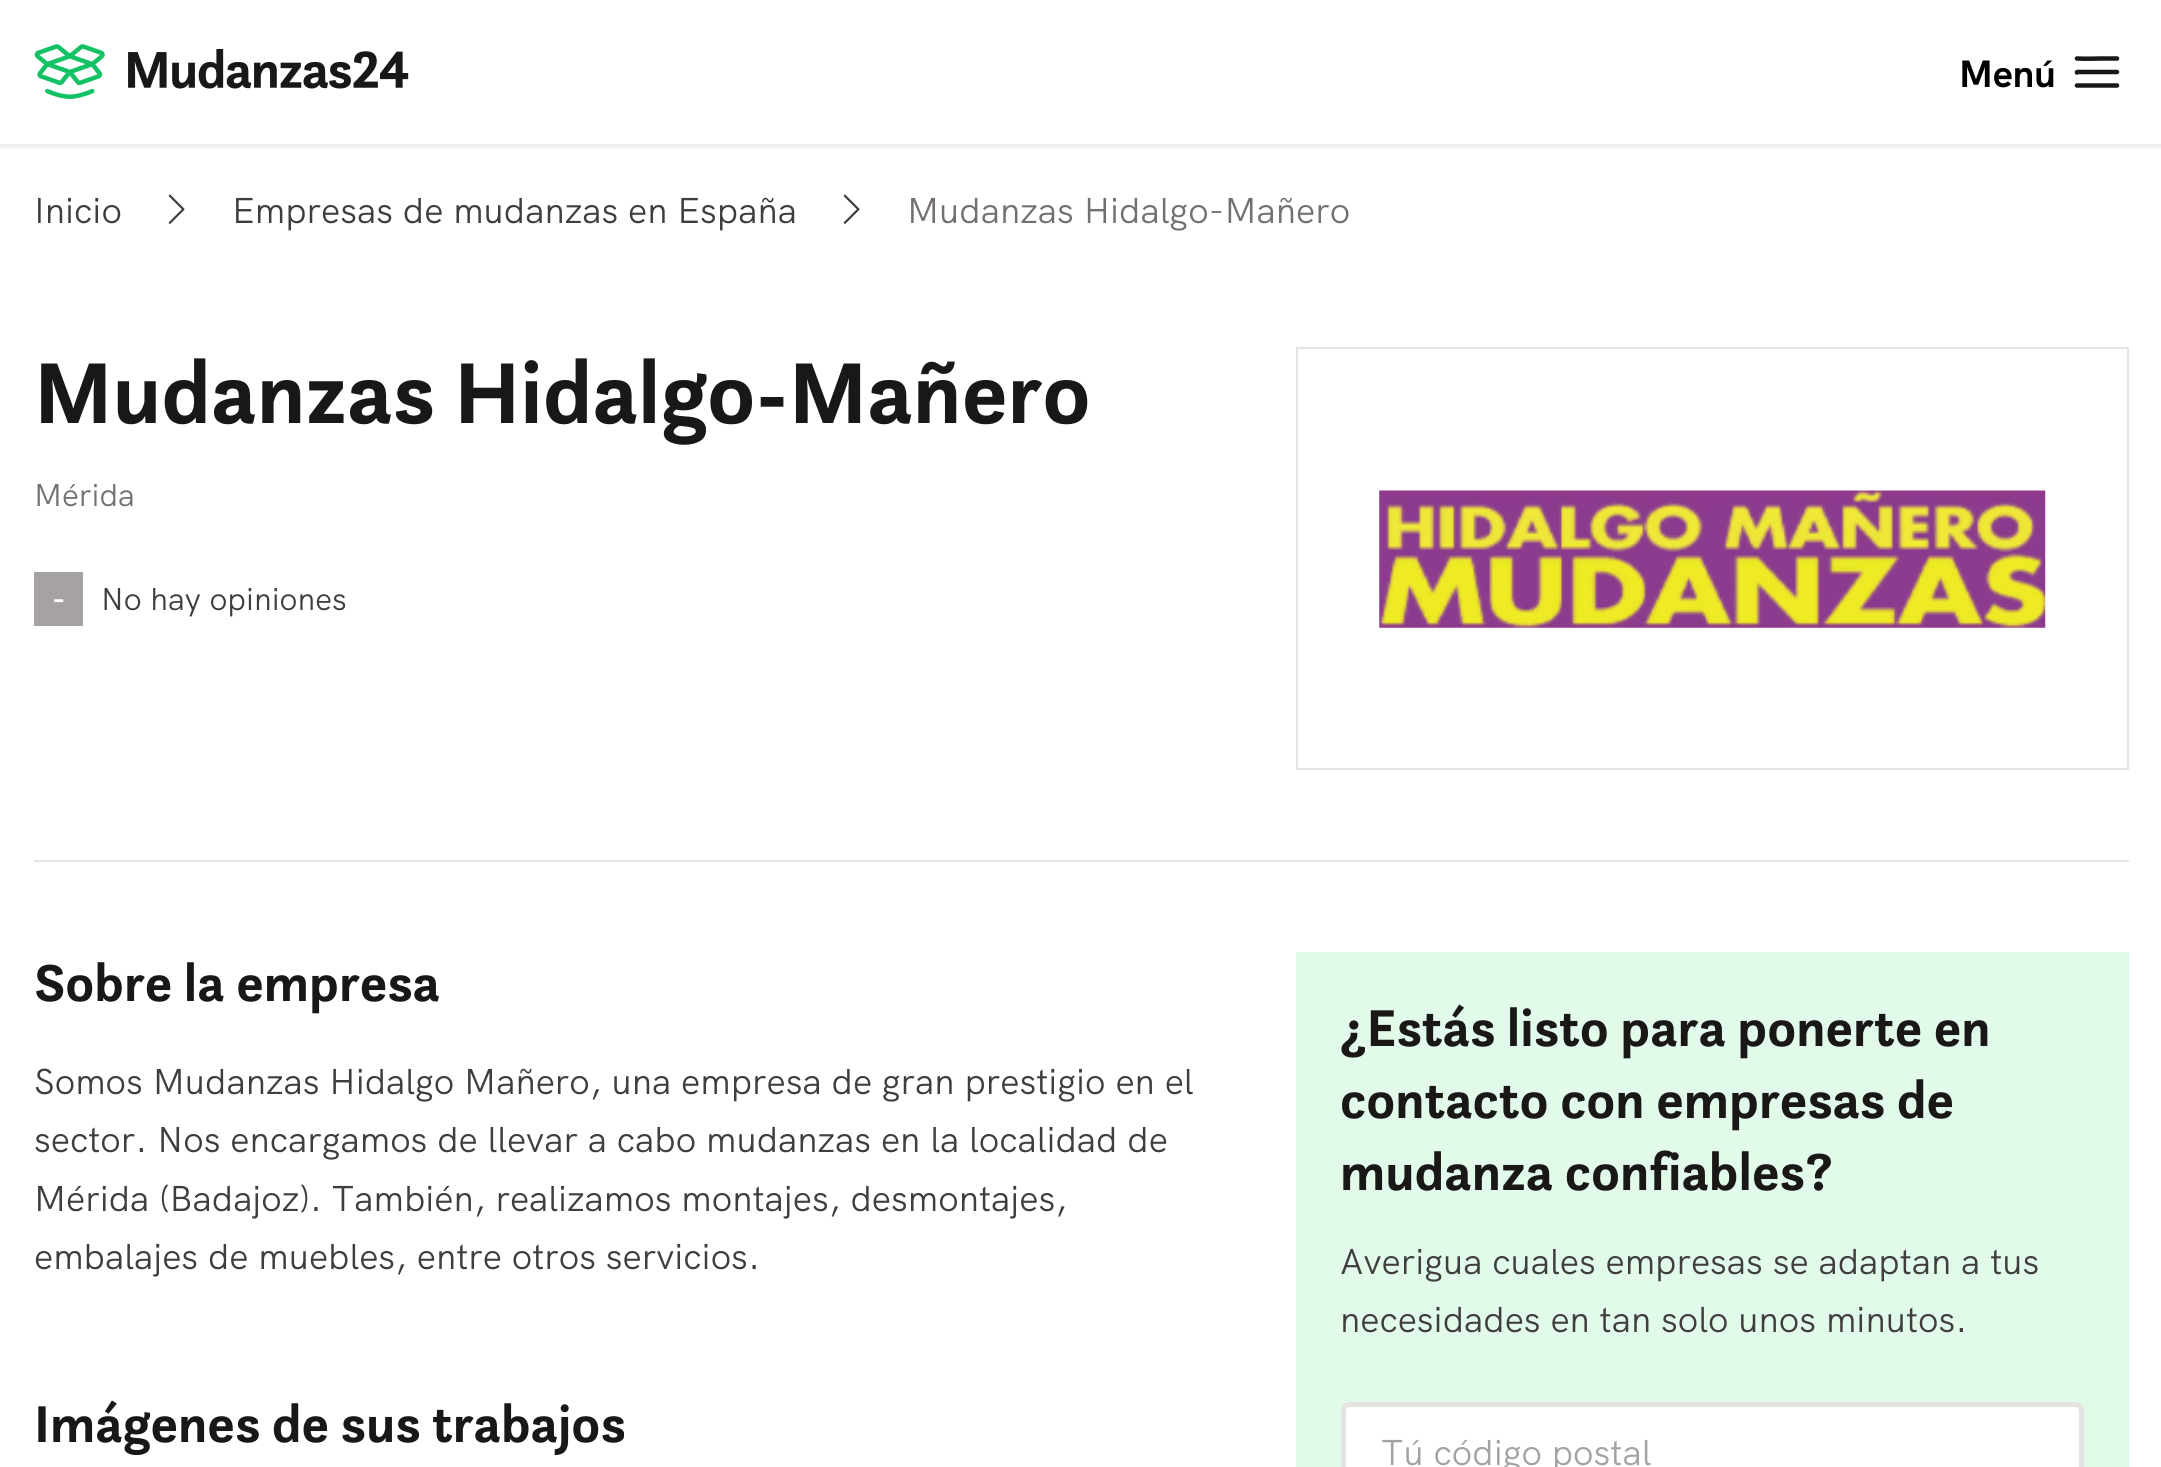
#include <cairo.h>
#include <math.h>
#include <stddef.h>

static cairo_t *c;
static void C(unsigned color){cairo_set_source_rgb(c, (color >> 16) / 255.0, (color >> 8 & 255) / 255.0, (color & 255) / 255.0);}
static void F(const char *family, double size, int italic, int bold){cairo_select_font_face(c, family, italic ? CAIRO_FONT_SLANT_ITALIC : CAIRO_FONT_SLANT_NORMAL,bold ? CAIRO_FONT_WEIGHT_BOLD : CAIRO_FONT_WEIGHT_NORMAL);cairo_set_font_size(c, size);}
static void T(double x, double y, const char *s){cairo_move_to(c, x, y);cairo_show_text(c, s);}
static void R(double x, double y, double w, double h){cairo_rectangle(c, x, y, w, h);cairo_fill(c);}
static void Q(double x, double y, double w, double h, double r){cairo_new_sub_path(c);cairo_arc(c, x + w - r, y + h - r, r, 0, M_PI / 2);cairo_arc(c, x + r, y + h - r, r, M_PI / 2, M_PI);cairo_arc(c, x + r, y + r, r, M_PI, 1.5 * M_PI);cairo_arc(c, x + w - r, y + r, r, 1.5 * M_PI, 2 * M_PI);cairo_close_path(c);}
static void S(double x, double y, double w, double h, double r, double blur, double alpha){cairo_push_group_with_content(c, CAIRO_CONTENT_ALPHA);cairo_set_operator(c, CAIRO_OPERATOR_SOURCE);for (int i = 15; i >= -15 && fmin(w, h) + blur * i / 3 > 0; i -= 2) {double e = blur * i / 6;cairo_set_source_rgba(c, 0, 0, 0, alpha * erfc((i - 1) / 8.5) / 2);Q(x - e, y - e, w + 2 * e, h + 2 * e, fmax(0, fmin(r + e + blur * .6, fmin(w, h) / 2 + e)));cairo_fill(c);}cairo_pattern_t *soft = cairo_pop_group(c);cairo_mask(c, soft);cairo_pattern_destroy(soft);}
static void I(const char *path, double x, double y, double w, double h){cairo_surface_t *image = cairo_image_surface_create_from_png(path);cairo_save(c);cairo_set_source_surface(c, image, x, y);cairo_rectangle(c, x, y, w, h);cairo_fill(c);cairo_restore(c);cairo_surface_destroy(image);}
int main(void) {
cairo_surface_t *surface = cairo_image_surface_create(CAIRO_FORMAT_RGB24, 2161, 1467);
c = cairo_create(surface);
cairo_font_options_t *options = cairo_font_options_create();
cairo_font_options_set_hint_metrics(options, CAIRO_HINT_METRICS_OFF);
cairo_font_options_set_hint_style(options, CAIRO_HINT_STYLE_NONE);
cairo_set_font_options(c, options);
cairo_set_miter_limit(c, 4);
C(0xffffff);
cairo_paint(c);
cairo_save(c);
cairo_rectangle(c,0,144,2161,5);
cairo_clip(c);
C(0x000000);
S(0,0,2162,144,0,4.5,.16);
cairo_restore(c);
I("1.png",34,44,375,55);
F("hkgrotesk",38,0,1);
C(0x000000);
T(1959,87,"Menú");
cairo_new_path(c);
cairo_move_to(c,2077,58.5);
cairo_curve_to(c,2085.5,59,2094,58.5,2102.5,58.5);
cairo_line_to(c,2117,58.5);
cairo_move_to(c,2077,72.5);
cairo_curve_to(c,2076.5,71.5,2079,72,2079,72);
cairo_line_to(c,2117,72);
cairo_move_to(c,2077,85.5);
cairo_line_to(c,2117,85.5);
C(0x1a1817);
cairo_set_line_width(c,4.5);
cairo_set_line_cap(c,CAIRO_LINE_CAP_ROUND);
cairo_set_line_join(c,CAIRO_LINE_JOIN_ROUND);
cairo_stroke(c);
F("hkgrotesk",36,0,0);
C(0x403e3d);
T(34,223,"Inicio");
I("2.png",168,194,17,30);
T(232,223,"Empresas de mudanzas en España");
I("2.png",843,194,17,30);
C(0x73706f);
T(907,223,"Mudanzas Hidalgo-Mañero");
F("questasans",90,0,0);
C(0x1a1817);
T(34,423,"Mudanzas Hidalgo-Mañero");
F("hkgrotesk",31.5,0,0);
C(0x73706f);
T(34,506,"Mérida");
C(0xa6a2a1);
R(34,572,49,54);
F("hkgrotesk",31.5,0,1);
C(0xffffff);
T(52,610,"-");
F("hkgrotesk",31.5,0,0);
C(0x403e3d);
T(101,610,"No hay opiniones");
cairo_rectangle(c,1297,348,831,421);
C(0xe6e4e3);
cairo_set_line_width(c,2);
cairo_set_line_cap(c,CAIRO_LINE_CAP_BUTT);
cairo_set_line_join(c,CAIRO_LINE_JOIN_MITER);
cairo_stroke(c);
I("3.png",1379,490,667,138);
R(34,860,2095,2);
F("questasans",54,0,0);
C(0x1a1817);
T(34,1001,"Sobre la empresa");
F("hkgrotesk",36,0,0);
C(0x403e3d);
T(34,1094,"Somos Mudanzas Hidalgo Mañero, una empresa de gran prestigio en el");
T(34,1152,"sector. Nos encargamos de llevar a cabo mudanzas en la localidad de");
T(34,1211,"Mérida (Badajoz). También, realizamos montajes, desmontajes,");
T(34,1269,"embalajes de muebles, entre otros servicios.");
F("questasans",54,0,0);
C(0x1a1817);
T(34,1442,"Imágenes de sus trabajos");
C(0xe1fae9);
R(1296,952,833,515);
C(0x1a1817);
T(1340,1046,"¿Estás listo para ponerte en");
T(1340,1118,"contacto con empresas de");
T(1340,1190,"mudanza confiables?");
F("hkgrotesk",36,0,0);
C(0x403e3d);
T(1340,1274,"Averigua cuales empresas se adaptan a tus");
T(1340,1332,"necesidades en tan solo unos minutos.");
C(0xffffff);
Q(1346,1406,733,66,5);
cairo_fill(c);
Q(1343.5,1404.5,738,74,6.5);
C(0xe6e4e3);
cairo_set_line_width(c,5);
cairo_stroke(c);
C(0xa6a2a1);
T(1381,1465,"Tú código postal");
cairo_surface_write_to_png(surface, "o.png");
cairo_font_options_destroy(options);
cairo_destroy(c);
cairo_surface_destroy(surface);
return 0;
}
